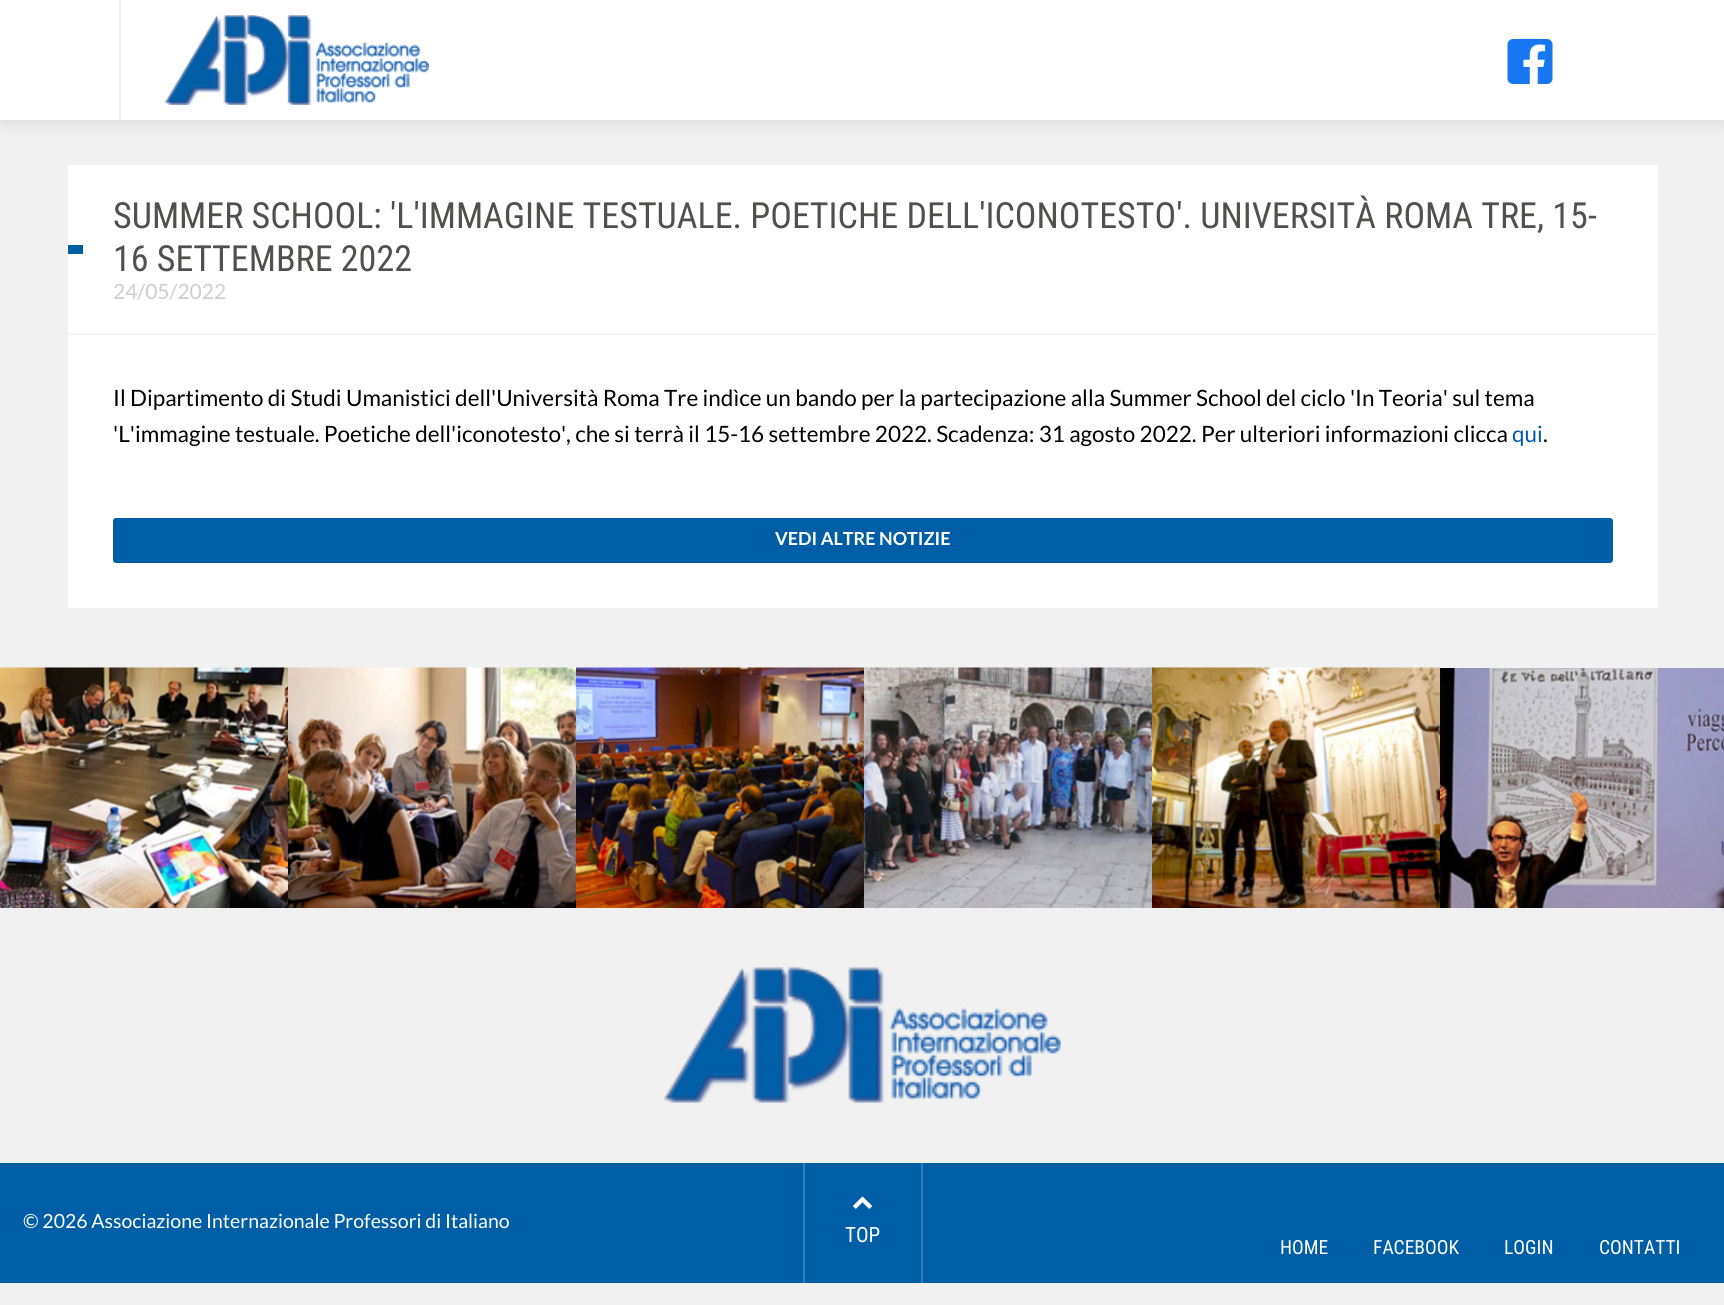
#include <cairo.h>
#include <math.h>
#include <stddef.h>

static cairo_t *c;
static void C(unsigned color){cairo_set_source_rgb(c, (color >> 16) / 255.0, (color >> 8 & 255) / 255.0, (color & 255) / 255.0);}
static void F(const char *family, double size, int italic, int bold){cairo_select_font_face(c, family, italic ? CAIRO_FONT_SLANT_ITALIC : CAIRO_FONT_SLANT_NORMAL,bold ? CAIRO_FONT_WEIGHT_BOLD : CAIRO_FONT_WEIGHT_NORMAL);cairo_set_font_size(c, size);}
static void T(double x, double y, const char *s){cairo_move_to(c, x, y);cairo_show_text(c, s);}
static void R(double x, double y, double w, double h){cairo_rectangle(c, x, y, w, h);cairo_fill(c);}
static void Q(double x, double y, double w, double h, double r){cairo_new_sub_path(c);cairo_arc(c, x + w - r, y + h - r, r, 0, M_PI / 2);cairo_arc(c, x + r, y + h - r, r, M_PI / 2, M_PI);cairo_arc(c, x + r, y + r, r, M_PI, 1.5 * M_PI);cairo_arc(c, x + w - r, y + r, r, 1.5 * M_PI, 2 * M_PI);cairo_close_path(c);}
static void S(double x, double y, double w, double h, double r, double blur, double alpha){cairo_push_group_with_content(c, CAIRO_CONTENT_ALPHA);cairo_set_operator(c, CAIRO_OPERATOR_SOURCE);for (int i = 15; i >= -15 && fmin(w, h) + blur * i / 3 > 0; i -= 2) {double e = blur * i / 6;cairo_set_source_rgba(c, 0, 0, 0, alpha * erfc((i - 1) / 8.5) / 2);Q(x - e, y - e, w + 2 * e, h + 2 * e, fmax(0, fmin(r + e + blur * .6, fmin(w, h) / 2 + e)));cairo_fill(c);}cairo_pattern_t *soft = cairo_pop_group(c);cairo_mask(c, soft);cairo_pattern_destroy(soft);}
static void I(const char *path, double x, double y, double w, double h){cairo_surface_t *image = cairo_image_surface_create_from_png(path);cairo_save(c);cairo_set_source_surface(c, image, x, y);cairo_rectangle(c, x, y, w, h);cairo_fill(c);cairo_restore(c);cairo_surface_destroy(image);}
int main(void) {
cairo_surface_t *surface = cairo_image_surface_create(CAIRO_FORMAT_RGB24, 1724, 1305);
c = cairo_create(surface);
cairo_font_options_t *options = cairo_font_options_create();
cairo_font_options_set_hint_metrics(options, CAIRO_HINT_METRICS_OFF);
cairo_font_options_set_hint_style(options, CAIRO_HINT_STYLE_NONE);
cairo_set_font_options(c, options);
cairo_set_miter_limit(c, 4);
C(0xf1f1f1);
cairo_paint(c);
C(0x000000);
S(0,3,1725,120,0,7.5,.1);
C(0xffffff);
R(0,0,1724,120);
C(0xf2f2f2);
R(119,0,2,120);
I("1.png",165,15,264,90);
I("2.png",1507,39,46,45);
C(0xffffff);
R(68,165,1590,443);
C(0xf4f4f4);
R(68,333,1590,2);
C(0x005ea7);
R(68,245,15,9);
F("Roboto Condensed",36,0,0);
C(0x50514f);
T(113,228,"SUMMER SCHOOL: 'L'IMMAGINE TESTUALE. POETICHE DELL'ICONOTESTO'. UNIVERSITÀ ROMA TRE, 15-");
T(113,271,"16 SETTEMBRE 2022");
F("Lato",21,0,0);
C(0xcecece);
T(113,299,"24/05/2022");
F("Lato",22.5,0,0);
C(0x000000);
T(113,406,"Il Dipartimento di Studi Umanistici dell'Università Roma Tre indìce un bando per la partecipazione alla Summer School del ciclo 'In Teoria' sul tema");
T(113,442,"'L'immagine testuale. Poetiche dell'iconotesto', che si terrà il 15-16 settembre 2022. Scadenza: 31 agosto 2022. Per ulteriori informazioni clicca");
C(0x005ea7);
T(1512,442,"qui");
C(0x000000);
T(1543,442,".");
C(0x005ea7);
Q(113,518,1500,45,3);
cairo_fill(c);
F("Lato",18,0,1);
C(0xffffff);
T(775,545,"VEDI ALTRE NOTIZIE");
I("3.png",0,667,288,241);
I("4.png",288,667,288,241);
I("5.png",576,667,288,241);
I("6.png",864,667,288,241);
I("7.png",1152,667,288,241);
I("8.png",1440,668,284,240);
I("9.png",664,967,397,136);
C(0x005ea7);
R(0,1163,1724,120);
F("Lato",19.5,0,0);
C(0xffffff);
T(23,1228,"© 2026 Associazione Internazionale Professori di Italiano");
F("Roboto Condensed",19.5,0,0);
T(1280,1254,"HOME");
T(1373,1254,"FACEBOOK");
T(1504,1254,"LOGIN");
T(1599,1254,"CONTATTI");
C(0x337eb9);
R(921,1163,2,120);
R(803,1163,2,120);
I("10.png",853,1196,19,13);
F("Roboto Condensed",21,0,0);
C(0xffffff);
T(845,1242,"TOP");
cairo_surface_write_to_png(surface, "o.png");
cairo_font_options_destroy(options);
cairo_destroy(c);
cairo_surface_destroy(surface);
return 0;
}
